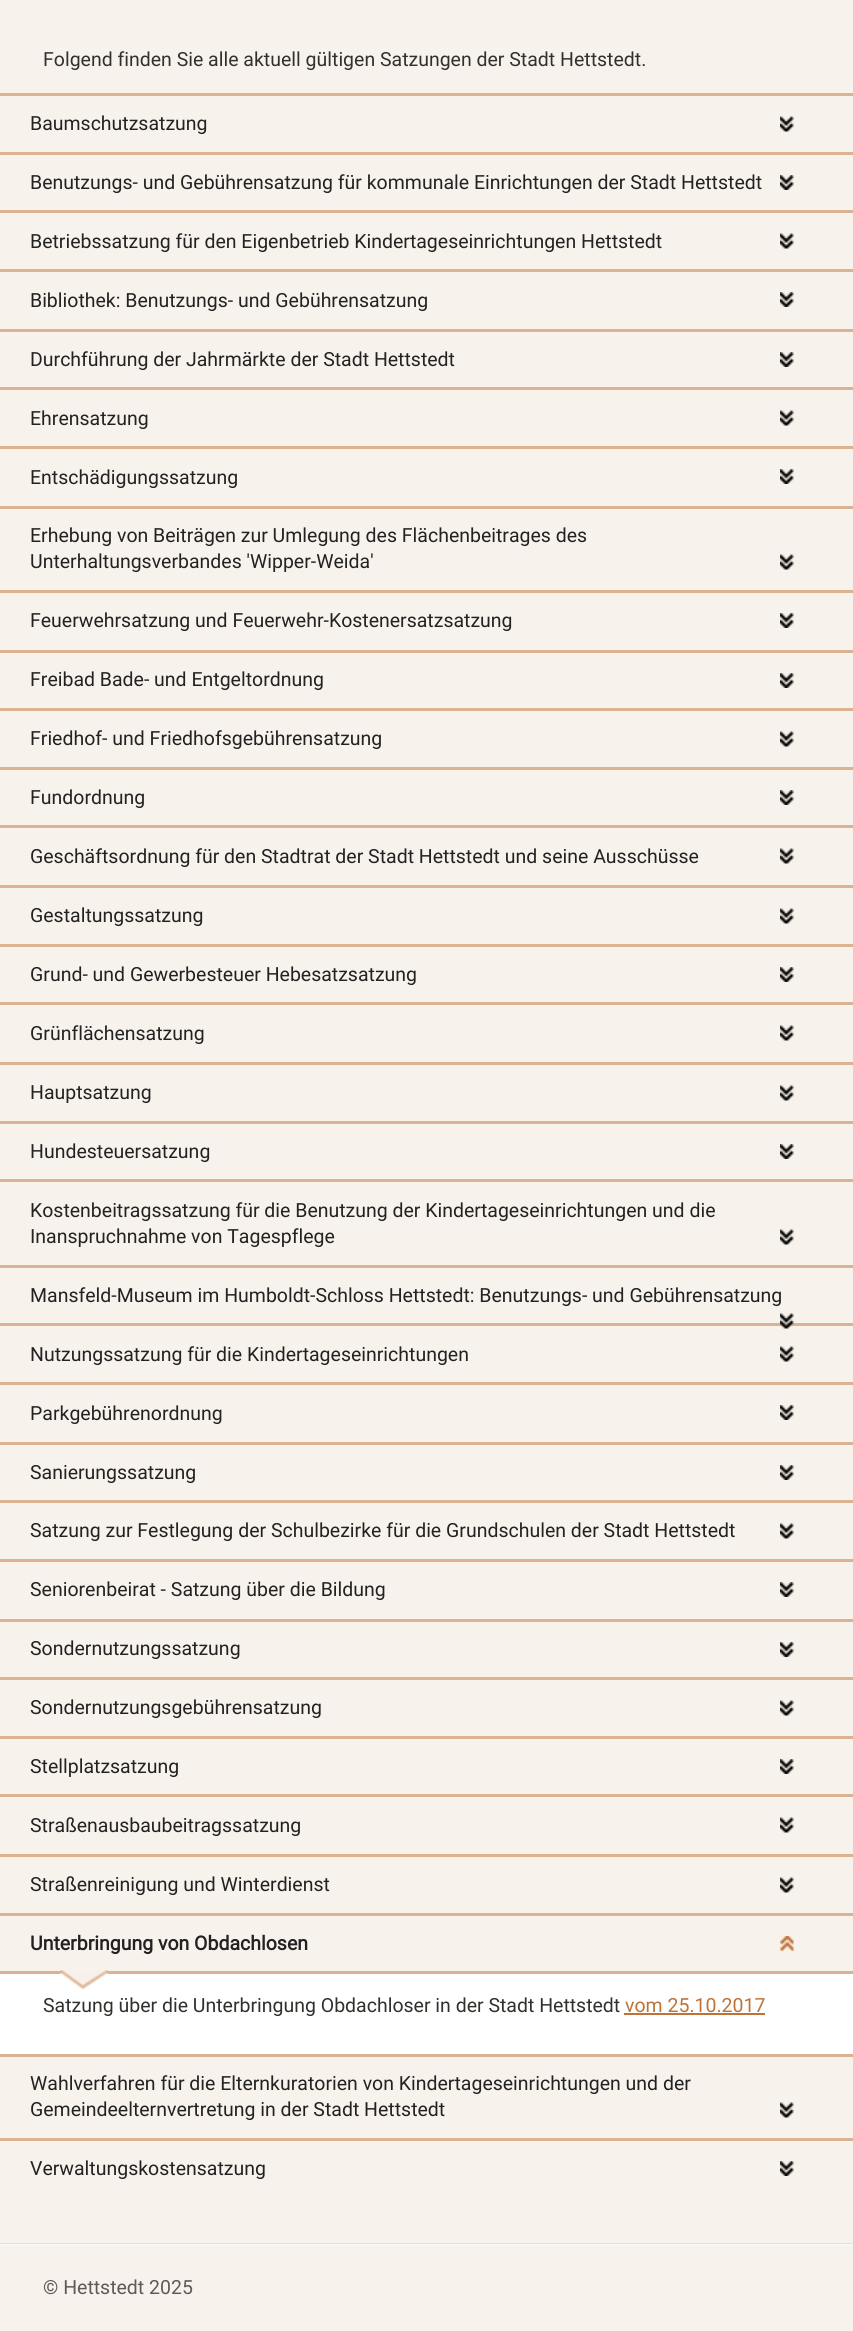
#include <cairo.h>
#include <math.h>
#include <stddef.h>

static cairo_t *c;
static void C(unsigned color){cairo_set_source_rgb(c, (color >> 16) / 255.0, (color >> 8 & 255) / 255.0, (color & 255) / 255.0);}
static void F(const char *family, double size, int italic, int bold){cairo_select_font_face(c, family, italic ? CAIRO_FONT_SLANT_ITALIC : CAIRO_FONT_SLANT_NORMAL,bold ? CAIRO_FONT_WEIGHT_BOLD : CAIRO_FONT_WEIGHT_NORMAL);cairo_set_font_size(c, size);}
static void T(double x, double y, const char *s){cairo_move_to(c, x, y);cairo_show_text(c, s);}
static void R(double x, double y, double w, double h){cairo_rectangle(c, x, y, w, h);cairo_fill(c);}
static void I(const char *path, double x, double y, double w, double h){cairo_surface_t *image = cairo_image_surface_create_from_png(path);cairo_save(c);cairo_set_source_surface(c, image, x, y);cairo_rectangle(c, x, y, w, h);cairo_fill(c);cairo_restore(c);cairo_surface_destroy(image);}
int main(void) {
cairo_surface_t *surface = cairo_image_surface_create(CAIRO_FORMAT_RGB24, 853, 2331);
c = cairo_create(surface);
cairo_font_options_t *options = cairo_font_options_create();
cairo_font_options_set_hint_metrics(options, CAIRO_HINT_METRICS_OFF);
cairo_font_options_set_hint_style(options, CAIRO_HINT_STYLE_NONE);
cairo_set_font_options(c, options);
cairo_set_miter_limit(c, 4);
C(0xf8f2ec);
cairo_paint(c);
F("Roboto",19.5,0,0);
C(0x32302d);
T(43,66,"Folgend finden Sie alle aktuell gültigen Satzungen der Stadt Hettstedt.");
C(0xdbb293);
R(0,93,853,3);
C(0x222222);
T(30,130,"Baumschutzsatzung");
I("1.png",780,116,14,16);
C(0xdbb293);
R(0,152,853,3);
C(0x222222);
T(30,189,"Benutzungs- und Gebührensatzung für kommunale Einrichtungen der Stadt Hettstedt");
I("2.png",780,175,14,15);
C(0xdbb293);
R(0,210,853,3);
C(0x222222);
T(30,248,"Betriebssatzung für den Eigenbetrieb Kindertageseinrichtungen Hettstedt");
I("1.png",780,233,14,16);
C(0xdbb293);
R(0,269,853,3);
C(0x222222);
T(30,307,"Bibliothek: Benutzungs- und Gebührensatzung");
I("2.png",780,292,14,15);
C(0xdbb293);
R(0,329,853,3);
C(0x222222);
T(30,366,"Durchführung der Jahrmärkte der Stadt Hettstedt");
I("2.png",780,352,14,15);
C(0xdbb293);
R(0,387,853,3);
C(0x222222);
T(30,425,"Ehrensatzung");
I("1.png",780,410,14,16);
C(0xdbb293);
R(0,446,853,3);
C(0x222222);
T(30,484,"Entschädigungssatzung");
I("2.png",780,469,14,15);
C(0xdbb293);
R(0,506,853,3);
C(0x222222);
T(30,542,"Erhebung von Beiträgen zur Umlegung des Flächenbeitrages des");
T(30,568,"Unterhaltungsverbandes 'Wipper-Weida'");
I("1.png",780,554,14,16);
C(0xdbb293);
R(0,590,853,3);
C(0x222222);
T(30,627,"Feuerwehrsatzung und Feuerwehr-Kostenersatzsatzung");
I("2.png",780,613,14,15);
C(0xdbb293);
R(0,650,853,3);
C(0x222222);
T(30,686,"Freibad Bade- und Entgeltordnung");
I("2.png",780,673,14,15);
C(0xdbb293);
R(0,708,853,3);
C(0x222222);
T(30,745,"Friedhof- und Friedhofsgebührensatzung");
I("1.png",780,731,14,16);
C(0xdbb293);
R(0,767,853,3);
C(0x222222);
T(30,804,"Fundordnung");
I("2.png",780,790,14,15);
C(0xdbb293);
R(0,825,853,3);
C(0x222222);
T(30,863,"Geschäftsordnung für den Stadtrat der Stadt Hettstedt und seine Ausschüsse");
I("1.png",780,848,14,16);
C(0xdbb293);
R(0,885,853,3);
C(0x222222);
T(30,922,"Gestaltungssatzung");
I("1.png",780,908,14,16);
C(0xdbb293);
R(0,944,853,3);
C(0x222222);
T(30,981,"Grund- und Gewerbesteuer Hebesatzsatzung");
I("2.png",780,967,14,15);
C(0xdbb293);
R(0,1002,853,3);
C(0x222222);
T(30,1040,"Grünflächensatzung");
I("1.png",780,1025,14,16);
C(0xdbb293);
R(0,1062,853,3);
C(0x222222);
T(30,1099,"Hauptsatzung");
I("1.png",780,1085,14,16);
C(0xdbb293);
R(0,1121,853,3);
C(0x222222);
T(30,1158,"Hundesteuersatzung");
I("2.png",780,1144,14,15);
C(0xdbb293);
R(0,1179,853,3);
C(0x222222);
T(30,1217,"Kostenbeitragssatzung für die Benutzung der Kindertageseinrichtungen und die");
T(30,1243,"Inanspruchnahme von Tagespflege");
I("1.png",780,1229,14,16);
C(0xdbb293);
R(0,1265,853,3);
C(0x222222);
T(30,1302,"Mansfeld-Museum im Humboldt-Schloss Hettstedt: Benutzungs- und Gebührensatzung");
C(0xdbb293);
R(0,1323,853,3);
I("3.png",780,1313,14,16);
C(0x222222);
T(30,1361,"Nutzungssatzung für die Kindertageseinrichtungen");
I("1.png",780,1346,14,16);
C(0xdbb293);
R(0,1382,853,3);
C(0x222222);
T(30,1420,"Parkgebührenordnung");
I("2.png",780,1405,14,15);
C(0xdbb293);
R(0,1442,853,3);
C(0x222222);
T(30,1479,"Sanierungssatzung");
I("2.png",780,1465,14,15);
C(0xdbb293);
R(0,1500,853,3);
C(0x222222);
T(30,1537,"Satzung zur Festlegung der Schulbezirke für die Grundschulen der Stadt Hettstedt");
I("1.png",780,1523,14,16);
C(0xdbb293);
R(0,1559,853,3);
C(0x222222);
T(30,1596,"Seniorenbeirat - Satzung über die Bildung");
I("2.png",780,1582,14,15);
C(0xdbb293);
R(0,1619,853,3);
C(0x222222);
T(30,1655,"Sondernutzungssatzung");
I("2.png",780,1642,14,15);
C(0xdbb293);
R(0,1677,853,3);
C(0x222222);
T(30,1714,"Sondernutzungsgebührensatzung");
I("1.png",780,1700,14,16);
C(0xdbb293);
R(0,1736,853,3);
C(0x222222);
T(30,1773,"Stellplatzsatzung");
I("2.png",780,1759,14,15);
C(0xdbb293);
R(0,1794,853,3);
C(0x222222);
T(30,1832,"Straßenausbaubeitragssatzung");
I("1.png",780,1817,14,16);
C(0xdbb293);
R(0,1854,853,3);
C(0x222222);
T(30,1891,"Straßenreinigung und Winterdienst");
I("1.png",780,1877,14,16);
C(0xdbb293);
R(0,1913,853,3);
F("Roboto",19.5,0,1);
C(0x222222);
T(30,1950,"Unterbringung von Obdachlosen");
I("4.png",780,1936,14,15);
C(0xffffff);
R(0,1974,853,80);
C(0xdbb293);
R(0,1971,853,3);
I("5.png",60,1970,48,20);
F("Roboto",19.5,0,0);
C(0x32302d);
T(43,2012,"Satzung über die Unterbringung Obdachloser in der Stadt Hettstedt");
C(0xbf7138);
T(625,2012,"vom 25.10.2017");
R(624,2013,141,2);
C(0xdbb293);
R(0,2054,853,3);
C(0x222222);
T(30,2090,"Wahlverfahren für die Elternkuratorien von Kindertageseinrichtungen und der");
T(30,2116,"Gemeindeelternvertretung in der Stadt Hettstedt");
I("1.png",780,2102,14,16);
C(0xdbb293);
R(0,2138,853,3);
C(0x222222);
T(30,2175,"Verwaltungskostensatzung");
I("2.png",780,2161,14,15);
C(0xe1e1e1);
R(0,2243,853,1);
C(0xf6f6f6);
R(0,2244,853,2);
C(0x5f5957);
T(43,2294,"© Hettstedt 2025");
cairo_surface_write_to_png(surface, "o.png");
cairo_font_options_destroy(options);
cairo_destroy(c);
cairo_surface_destroy(surface);
return 0;
}
